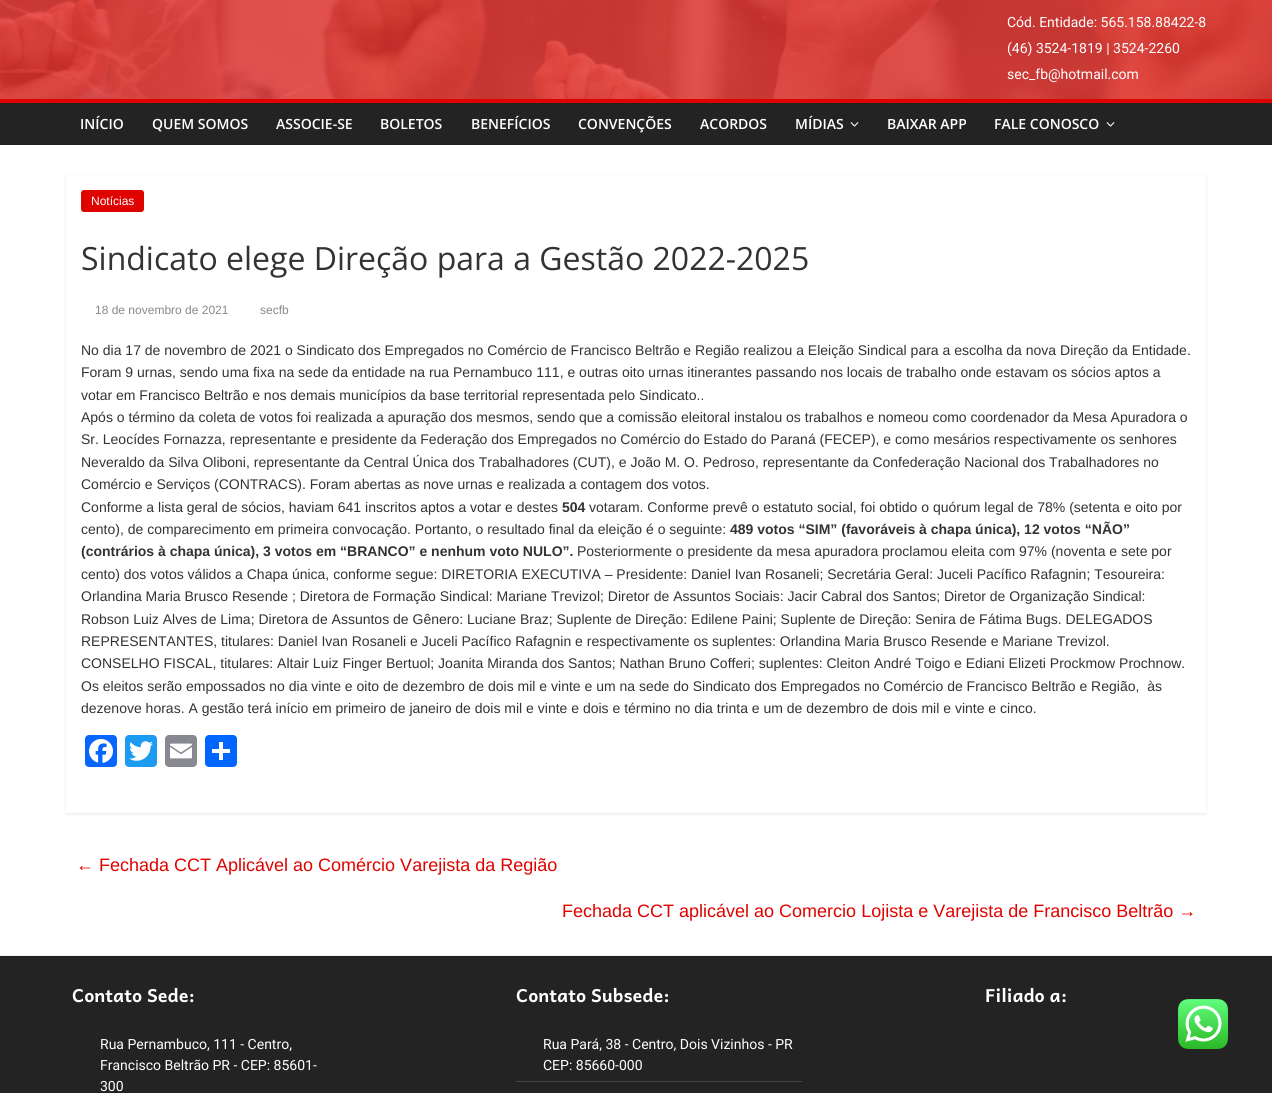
#include <cairo.h>
#include <math.h>
#include <stddef.h>

static cairo_t *c;
static void C(unsigned color){cairo_set_source_rgb(c, (color >> 16) / 255.0, (color >> 8 & 255) / 255.0, (color & 255) / 255.0);}
static void F(const char *family, double size, int italic, int bold){cairo_select_font_face(c, family, italic ? CAIRO_FONT_SLANT_ITALIC : CAIRO_FONT_SLANT_NORMAL,bold ? CAIRO_FONT_WEIGHT_BOLD : CAIRO_FONT_WEIGHT_NORMAL);cairo_set_font_size(c, size);}
static void T(double x, double y, const char *s){cairo_move_to(c, x, y);cairo_show_text(c, s);}
static void R(double x, double y, double w, double h){cairo_rectangle(c, x, y, w, h);cairo_fill(c);}
static void Q(double x, double y, double w, double h, double r){cairo_new_sub_path(c);cairo_arc(c, x + w - r, y + h - r, r, 0, M_PI / 2);cairo_arc(c, x + r, y + h - r, r, M_PI / 2, M_PI);cairo_arc(c, x + r, y + r, r, M_PI, 1.5 * M_PI);cairo_arc(c, x + w - r, y + r, r, 1.5 * M_PI, 2 * M_PI);cairo_close_path(c);}
static void S(double x, double y, double w, double h, double r, double blur, double alpha){cairo_push_group_with_content(c, CAIRO_CONTENT_ALPHA);cairo_set_operator(c, CAIRO_OPERATOR_SOURCE);for (int i = 15; i >= -15 && fmin(w, h) + blur * i / 3 > 0; i -= 2) {double e = blur * i / 6;cairo_set_source_rgba(c, 0, 0, 0, alpha * erfc((i - 1) / 8.5) / 2);Q(x - e, y - e, w + 2 * e, h + 2 * e, fmax(0, fmin(r + e + blur * .6, fmin(w, h) / 2 + e)));cairo_fill(c);}cairo_pattern_t *soft = cairo_pop_group(c);cairo_mask(c, soft);cairo_pattern_destroy(soft);}
static void I(const char *path, double x, double y, double w, double h){cairo_surface_t *image = cairo_image_surface_create_from_png(path);cairo_save(c);cairo_set_source_surface(c, image, x, y);cairo_rectangle(c, x, y, w, h);cairo_fill(c);cairo_restore(c);cairo_surface_destroy(image);}
int main(void) {
cairo_surface_t *surface = cairo_image_surface_create(CAIRO_FORMAT_RGB24, 1272, 1093);
c = cairo_create(surface);
cairo_font_options_t *options = cairo_font_options_create();
cairo_font_options_set_hint_metrics(options, CAIRO_HINT_METRICS_OFF);
cairo_font_options_set_hint_style(options, CAIRO_HINT_STYLE_NONE);
cairo_set_font_options(c, options);
cairo_set_miter_limit(c, 4);
C(0xffffff);
cairo_paint(c);
I("1.png",0,0,1272,99);
F("Roboto",14,0,0);
C(0xffffff);
T(1007,27,"Cód. Entidade: 565.158.88422-8");
T(1007,53,"(46) 3524-1819 | 3524-2260");
T(1007,79,"sec_fb@hotmail.com");
C(0x232323);
R(0,103,1272,42);
C(0xdf0300);
R(0,99,1272,4);
F("Open Sans SemiBold",14,0,0);
C(0xffffff);
T(80,129,"INÍCIO");
T(152,129,"QUEM SOMOS");
T(276,129,"ASSOCIE-SE");
T(380,129,"BOLETOS");
T(471,129,"BENEFÍCIOS");
T(578,129,"CONVENÇÕES");
T(700,129,"ACORDOS");
T(795,129,"MÍDIAS");
I("2.png",850,122,9,5);
T(887,129,"BAIXAR APP");
T(994,129,"FALE CONOSCO");
I("2.png",1106,122,9,5);
cairo_save(c);
cairo_set_fill_rule(c,CAIRO_FILL_RULE_EVEN_ODD);
cairo_new_path(c);
cairo_move_to(c,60,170);
cairo_line_to(c,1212,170);
cairo_line_to(c,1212,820);
cairo_line_to(c,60,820);
cairo_close_path(c);
cairo_move_to(c,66,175);
cairo_line_to(c,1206,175);
cairo_line_to(c,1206,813);
cairo_line_to(c,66,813);
cairo_close_path(c);
cairo_clip(c);
C(0x000000);
S(66,176,1140,638,0,1.5,.1);
cairo_restore(c);
C(0xdf0300);
Q(81,190,63,22,3);
cairo_fill(c);
F("Liberation Sans",12,0,0);
C(0xffffff);
T(91,205,"Notícias");
F("Open Sans",32,0,0);
C(0x333333);
T(81,270,"Sindicato elege Direção para a Gestão 2022-2025");
F("Liberation Sans",12,0,0);
C(0x888888);
T(95,314,"18 de novembro de 2021");
T(260,314,"secfb");
F("Liberation Sans",14,0,0);
C(0x333333);
T(81,355,"No dia 17 de novembro de 2021 o Sindicato dos Empregados no Comércio de Francisco Beltrão e Região realizou a Eleição Sindical para a escolha da nova Direção da Entidade.");
T(81,377,"Foram 9 urnas, sendo uma fixa na sede da entidade na rua Pernambuco 111, e outras oito urnas itinerantes passando nos locais de trabalho onde estavam os sócios aptos a");
T(81,400,"votar em Francisco Beltrão e nos demais municípios da base territorial representada pelo Sindicato..");
T(81,422,"Após o término da coleta de votos foi realizada a apuração dos mesmos, sendo que a comissão eleitoral instalou os trabalhos e nomeou como coordenador da Mesa Apuradora o");
T(81,444,"Sr. Leocídes Fornazza, representante e presidente da Federação dos Empregados no Comércio do Estado do Paraná (FECEP), e como mesários respectivamente os senhores");
T(81,467,"Neveraldo da Silva Oliboni, representante da Central Única dos Trabalhadores (CUT), e João M. O. Pedroso, representante da Confederação Nacional dos Trabalhadores no");
T(81,489,"Comércio e Serviços (CONTRACS). Foram abertas as nove urnas e realizada a contagem dos votos.");
T(81,512,"Conforme a lista geral de sócios, haviam 641 inscritos aptos a votar e destes");
F("Liberation Sans",14,0,1);
T(562,512,"504");
F("Liberation Sans",14,0,0);
T(589,512,"votaram. Conforme prevê o estatuto social, foi obtido o quórum legal de 78% (setenta e oito por");
T(81,534,"cento), de comparecimento em primeira convocação. Portanto, o resultado final da eleição é o seguinte:");
F("Liberation Sans",14,0,1);
T(730,534,"489 votos “SIM” (favoráveis à chapa única), 12 votos “NÃO”");
T(81,556,"(contrários à chapa única), 3 votos em “BRANCO” e nenhum voto NULO”.");
F("Liberation Sans",14,0,0);
T(577,556,"Posteriormente o presidente da mesa apuradora proclamou eleita com 97% (noventa e sete por");
T(81,579,"cento) dos votos válidos a Chapa única, conforme segue: DIRETORIA EXECUTIVA – Presidente: Daniel Ivan Rosaneli; Secretária Geral: Juceli Pacífico Rafagnin; Tesoureira:");
T(81,601,"Orlandina Maria Brusco Resende ; Diretora de Formação Sindical: Mariane Trevizol; Diretor de Assuntos Sociais: Jacir Cabral dos Santos; Diretor de Organização Sindical:");
T(81,624,"Robson Luiz Alves de Lima; Diretora de Assuntos de Gênero: Luciane Braz; Suplente de Direção: Edilene Paini; Suplente de Direção: Senira de Fátima Bugs. DELEGADOS");
T(81,646,"REPRESENTANTES, titulares: Daniel Ivan Rosaneli e Juceli Pacífico Rafagnin e respectivamente os suplentes: Orlandina Maria Brusco Resende e Mariane Trevizol.");
T(81,668,"CONSELHO FISCAL, titulares: Altair Luiz Finger Bertuol; Joanita Miranda dos Santos; Nathan Bruno Cofferi; suplentes: Cleiton André Toigo e Ediani Elizeti Prockmow Prochnow.");
T(81,691,"Os eleitos serão empossados no dia vinte e oito de dezembro de dois mil e vinte e um na sede do Sindicato dos Empregados no Comércio de Francisco Beltrão e Região,  às");
T(81,713,"dezenove horas. A gestão terá início em primeiro de janeiro de dois mil e vinte e dois e término no dia trinta e um de dezembro de dois mil e vinte e cinco.");
C(0x0866ff);
Q(85,735,32,32,4);
cairo_fill(c);
I("3.png",89,739,24,24);
C(0x1d9bf0);
Q(125,735,32,32,4);
cairo_fill(c);
I("4.png",129,741,24,20);
C(0x888990);
Q(165,735,32,32,4);
cairo_fill(c);
I("5.png",170,743,22,16);
C(0x0166ff);
Q(205,735,32,32,4);
cairo_fill(c);
C(0xffffff);
R(219,742,4,18);
R(212,749,18,4);
F("Liberation Sans",18,0,0);
C(0xdf0300);
T(76,871,"← Fechada CCT Aplicável ao Comércio Varejista da Região");
T(562,917,"Fechada CCT aplicável ao Comercio Lojista e Varejista de Francisco Beltrão →");
C(0x232323);
R(0,956,1272,137);
C(0xf2f2f2);
R(0,955,1272,1);
F("Andika",18,0,1);
C(0xffffff);
T(72,1002,"Contato Sede:");
F("Roboto",14,0,0);
T(100,1049,"Rua Pernambuco, 111 - Centro,");
T(100,1070,"Francisco Beltrão PR - CEP: 85601-");
T(100,1091,"300");
F("Andika",18,0,1);
T(516,1002,"Contato Subsede:");
C(0x444444);
R(516,1081,286,1);
F("Roboto",14,0,0);
C(0xffffff);
T(543,1049,"Rua Pará, 38 - Centro, Dois Vizinhos - PR");
T(543,1070,"CEP: 85660-000");
F("Andika",18,0,1);
T(985,1002,"Filiado a:");
I("6.png",1178,999,50,50);
cairo_surface_write_to_png(surface, "o.png");
cairo_font_options_destroy(options);
cairo_destroy(c);
cairo_surface_destroy(surface);
return 0;
}
